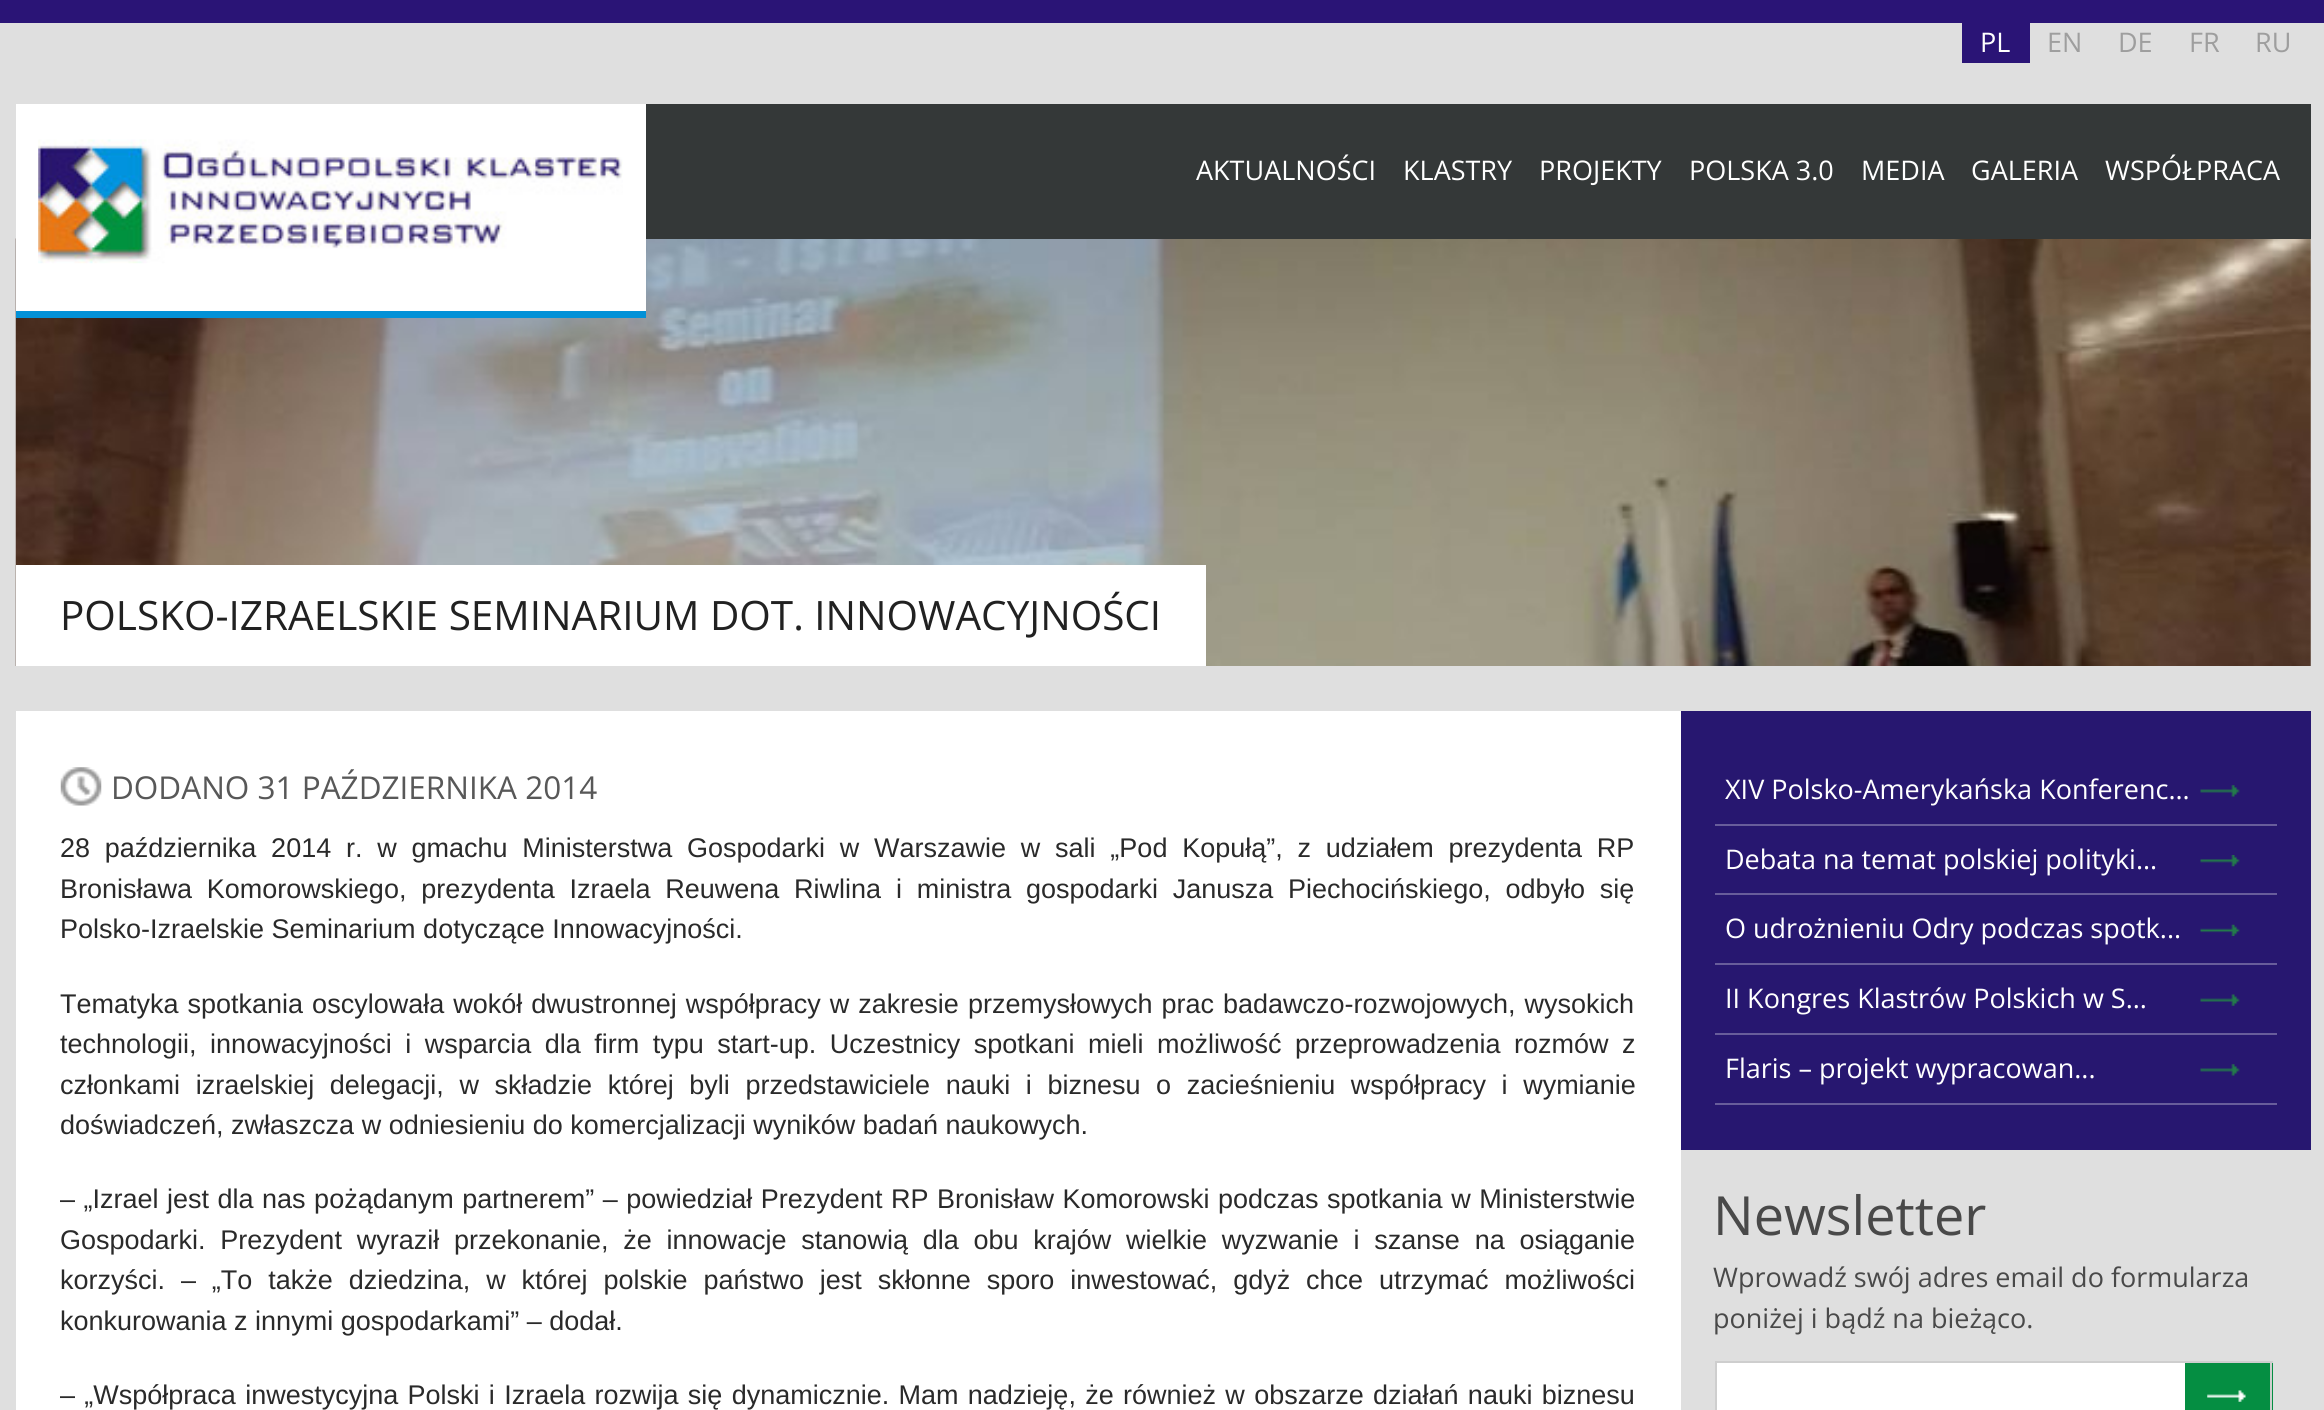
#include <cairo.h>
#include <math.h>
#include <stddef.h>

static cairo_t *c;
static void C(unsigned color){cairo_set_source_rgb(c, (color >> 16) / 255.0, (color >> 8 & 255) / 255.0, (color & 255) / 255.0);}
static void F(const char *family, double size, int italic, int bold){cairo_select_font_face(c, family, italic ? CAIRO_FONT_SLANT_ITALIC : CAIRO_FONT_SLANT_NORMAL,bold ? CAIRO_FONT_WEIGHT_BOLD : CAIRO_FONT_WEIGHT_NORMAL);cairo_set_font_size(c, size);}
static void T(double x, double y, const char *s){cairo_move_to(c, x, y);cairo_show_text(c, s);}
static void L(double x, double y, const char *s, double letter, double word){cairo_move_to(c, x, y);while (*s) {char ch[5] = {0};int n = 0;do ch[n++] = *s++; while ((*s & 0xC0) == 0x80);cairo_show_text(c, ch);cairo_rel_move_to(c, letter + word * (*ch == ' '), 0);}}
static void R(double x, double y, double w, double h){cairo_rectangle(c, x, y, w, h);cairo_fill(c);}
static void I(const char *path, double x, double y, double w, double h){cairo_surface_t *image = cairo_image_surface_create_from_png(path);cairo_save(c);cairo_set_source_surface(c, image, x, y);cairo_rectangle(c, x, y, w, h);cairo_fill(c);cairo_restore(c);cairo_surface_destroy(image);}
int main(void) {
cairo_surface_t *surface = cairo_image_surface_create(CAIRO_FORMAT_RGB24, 2324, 1410);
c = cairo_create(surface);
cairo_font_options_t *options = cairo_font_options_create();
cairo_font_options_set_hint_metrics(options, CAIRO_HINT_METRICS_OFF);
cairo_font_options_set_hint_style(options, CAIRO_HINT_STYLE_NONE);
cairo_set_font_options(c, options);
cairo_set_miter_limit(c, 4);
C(0xdfdfdf);
cairo_paint(c);
C(0x2a1476);
R(0,0,2324,23);
R(1962,23,68,40);
F("Open Sans",27,0,0);
C(0xffffff);
T(1980,52,"PL");
C(0x9e9e9e);
T(2047,52,"EN");
T(2118,52,"DE");
T(2189,52,"FR");
T(2255,52,"RU");
I("2.png",15,238,2296,428);
C(0xffffff);
R(16,104,630,207);
C(0x0391d7);
R(16,311,630,7);
I("1.png",38,139,585,125);
C(0x343838);
R(646,104,1665,135);
C(0xffffff);
T(1196,180,"AKTUALNOŚCI");
T(1403,180,"KLASTRY");
T(1539,180,"PROJEKTY");
T(1689,180,"POLSKA 3.0");
T(1861,180,"MEDIA");
T(1971,180,"GALERIA");
T(2105,180,"WSPÓŁPRACA");
R(16,565,1190,101);
F("Open Sans",40.5,0,0);
C(0x212121);
T(60,630,"POLSKO-IZRAELSKIE SEMINARIUM DOT. INNOWACYJNOŚCI");
C(0xffffff);
R(16,711,1665,699);
I("3.png",60,767,42,39);
F("Open Sans",31.5,0,0);
C(0x585858);
T(111,799,"DODANO 31 PAŹDZIERNIKA 2014");
F("Liberation Sans",27,0,0);
C(0x2a2a2a);
L(60,857,"28 października 2014 r. w gmachu Ministerstwa Gospodarki w Warszawie w sali „Pod Kopułą”, z udziałem prezydenta RP",0,7.25);
L(60,898,"Bronisława Komorowskiego, prezydenta Izraela Reuwena Riwlina i ministra gospodarki Janusza Piechocińskiego, odbyło się",0,7.25);
T(60,938,"Polsko-Izraelskie Seminarium dotyczące Innowacyjności.");
L(60,1013,"Tematyka spotkania oscylowała wokół dwustronnej współpracy w zakresie przemysłowych prac badawczo-rozwojowych, wysokich",0,1.5);
L(60,1053,"technologii, innowacyjności i wsparcia dla firm typu start-up. Uczestnicy spotkani mieli możliwość przeprowadzenia rozmów z",0,6);
L(60,1094,"członkami izraelskiej delegacji, w składzie której byli przedstawiciele nauki i biznesu o zacieśnieniu współpracy i wymianie",0,8.1);
T(60,1134,"doświadczeń, zwłaszcza w odniesieniu do komercjalizacji wyników badań naukowych.");
L(60,1208,"– „Izrael jest dla nas pożądanym partnerem” – powiedział Prezydent RP Bronisław Komorowski podczas spotkania w Ministerstwie",0,1);
L(60,1249,"Gospodarki. Prezydent wyraził przekonanie, że innowacje stanowią dla obu krajów wielkie wyzwanie i szanse na osiąganie",0,7.25);
L(60,1289,"korzyści. – „To także dziedzina, w której polskie państwo jest skłonne sporo inwestować, gdyż chce utrzymać możliwości",0,8.4);
T(60,1330,"konkurowania z innymi gospodarkami” – dodał.");
L(60,1404,"– „Współpraca inwestycyjna Polski i Izraela rozwija się dynamicznie. Mam nadzieję, że również w obszarze działań nauki biznesu",0,1.8);
C(0x271770);
R(1681,711,630,439);
I("4.png",2200,785,40,12);
C(0x685d9b);
R(1715,824,562,2);
F("Open Sans",27,0,0);
C(0xffffff);
T(1725,799,"XIV Polsko-Amerykańska Konferenc...");
I("5.png",2200,855,40,12);
C(0x685d9b);
R(1715,893,562,2);
C(0xffffff);
T(1725,869,"Debata na temat polskiej polityki...");
I("6.png",2200,924,40,12);
C(0x685d9b);
R(1715,963,562,2);
C(0xffffff);
T(1725,938,"O udrożnieniu Odry podczas spotk...");
I("7.png",2200,994,40,12);
C(0x685d9b);
R(1715,1033,562,2);
C(0xffffff);
T(1725,1008,"II Kongres Klastrów Polskich w S...");
I("4.png",2200,1064,40,12);
C(0x685d9b);
R(1715,1103,562,2);
C(0xffffff);
T(1725,1078,"Flaris – projekt wypracowan...");
F("Open Sans",54,0,0);
C(0x494949);
T(1713,1235,"Newsletter");
F("Open Sans",27,0,0);
T(1713,1287,"Wprowadź swój adres email do formularza");
T(1713,1328,"poniżej i bądź na bieżąco.");
C(0xffffff);
R(1717,1363,468,47);
C(0xcecece);
R(1715,1361,558,2);
R(1715,1361,2,49);
C(0x058e42);
R(2185,1363,88,47);
I("8.png",2207,1390,39,12);
C(0xcecece);
R(2270,1361,2,49);
cairo_surface_write_to_png(surface, "o.png");
cairo_font_options_destroy(options);
cairo_destroy(c);
cairo_surface_destroy(surface);
return 0;
}
